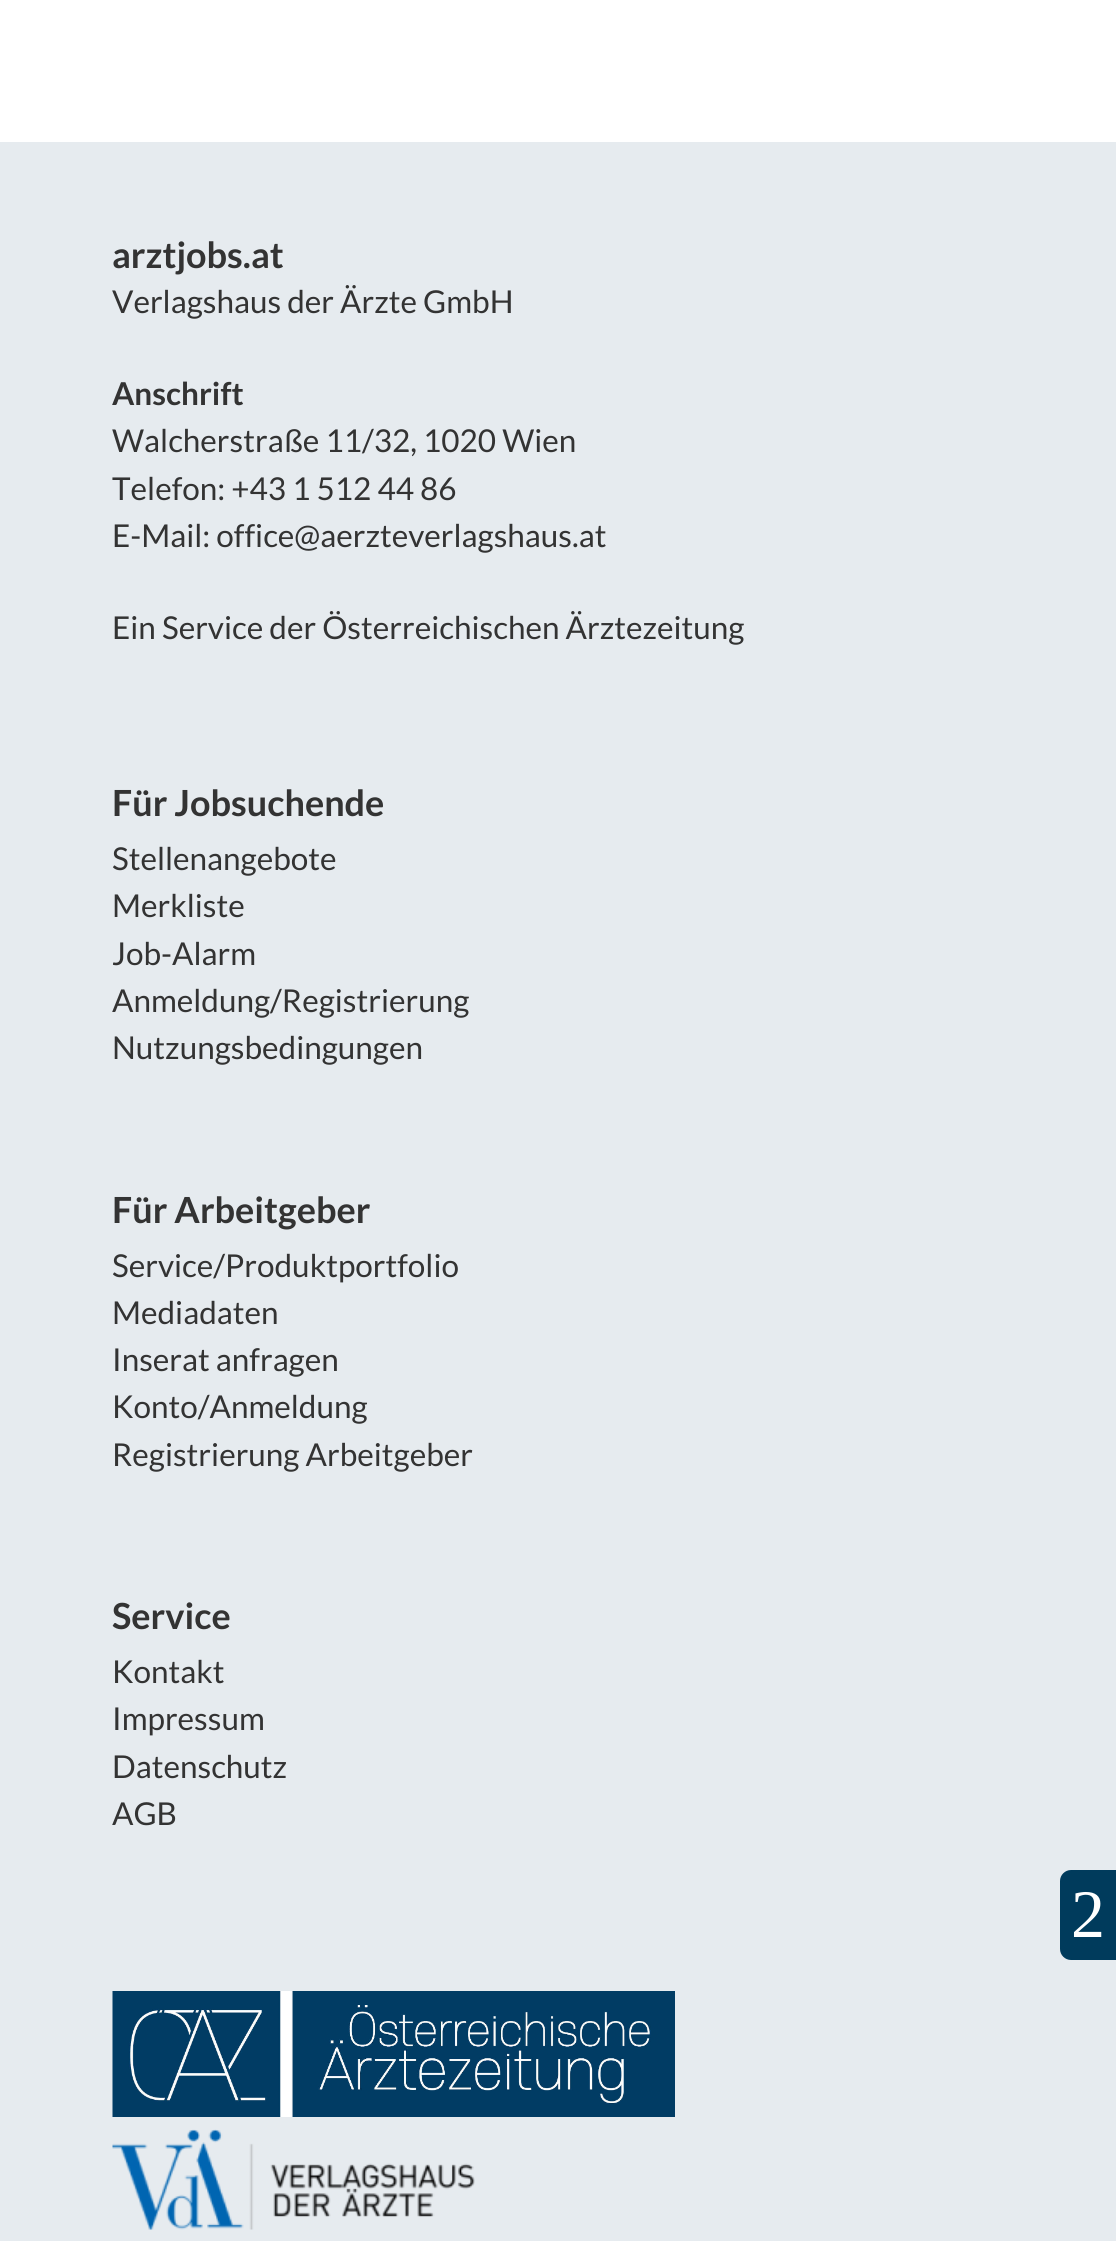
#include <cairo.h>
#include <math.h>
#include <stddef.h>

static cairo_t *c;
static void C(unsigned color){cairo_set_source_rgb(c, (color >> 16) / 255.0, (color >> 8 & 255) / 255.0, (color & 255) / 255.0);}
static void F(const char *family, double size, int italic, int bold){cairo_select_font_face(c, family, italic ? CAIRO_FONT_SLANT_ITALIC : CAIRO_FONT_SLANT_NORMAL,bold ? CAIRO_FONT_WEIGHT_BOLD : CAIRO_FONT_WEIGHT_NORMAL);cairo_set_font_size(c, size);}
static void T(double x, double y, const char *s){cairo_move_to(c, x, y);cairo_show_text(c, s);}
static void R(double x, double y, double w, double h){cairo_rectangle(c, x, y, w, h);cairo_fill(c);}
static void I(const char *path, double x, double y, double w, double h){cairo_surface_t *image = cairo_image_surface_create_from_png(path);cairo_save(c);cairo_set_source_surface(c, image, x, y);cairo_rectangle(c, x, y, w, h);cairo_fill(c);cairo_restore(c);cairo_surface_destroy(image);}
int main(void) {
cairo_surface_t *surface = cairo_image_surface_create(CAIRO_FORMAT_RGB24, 1116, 2241);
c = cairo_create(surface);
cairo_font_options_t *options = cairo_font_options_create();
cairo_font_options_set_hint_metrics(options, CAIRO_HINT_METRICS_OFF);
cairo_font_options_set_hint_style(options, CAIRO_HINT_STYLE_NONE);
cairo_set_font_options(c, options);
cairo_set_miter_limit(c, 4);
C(0xffffff);
cairo_paint(c);
C(0xe6ebef);
R(0,142,1116,2099);
F("Lato",36,0,1);
C(0x333333);
T(112,268,"arztjobs.at");
F("Lato",31.5,0,0);
T(112,313,"Verlagshaus der Ärzte GmbH");
F("Lato",31.5,0,1);
T(112,405,"Anschrift");
F("Lato",31.5,0,0);
T(112,452,"Walcherstraße 11/32, 1020 Wien");
T(112,500,"Telefon: +43 1 512 44 86");
T(112,547,"E-Mail: office@aerzteverlagshaus.at");
T(112,639,"Ein Service der Österreichischen Ärztezeitung");
F("Lato",36,0,1);
T(112,816,"Für Jobsuchende");
F("Lato",31.5,0,0);
T(112,870,"Stellenangebote");
T(112,917,"Merkliste");
T(112,965,"Job-Alarm");
T(112,1012,"Anmeldung/Registrierung");
T(112,1059,"Nutzungsbedingungen");
F("Lato",36,0,1);
T(112,1223,"Für Arbeitgeber");
F("Lato",31.5,0,0);
T(112,1277,"Service/Produktportfolio");
T(112,1324,"Mediadaten");
T(112,1371,"Inserat anfragen");
T(112,1418,"Konto/Anmeldung");
T(112,1466,"Registrierung Arbeitgeber");
F("Lato",36,0,1);
T(112,1629,"Service");
F("Lato",31.5,0,0);
T(112,1683,"Kontakt");
T(112,1730,"Impressum");
T(112,1778,"Datenschutz");
T(112,1825,"AGB");
I("1.png",112,1991,563,126);
I("2.png",112,2129,363,101);
C(0x003b5c);
cairo_new_path(c);
cairo_move_to(c,1071,1870);
cairo_line_to(c,1116,1870);
cairo_line_to(c,1116,1960);
cairo_line_to(c,1071,1960);
cairo_curve_to(c,1065,1960,1060,1955,1060,1949);
cairo_line_to(c,1060,1881);
cairo_curve_to(c,1060,1875,1065,1870,1071,1870);
cairo_close_path(c);
cairo_fill(c);
F("Liberation Serif",68,0,0);
C(0xffffff);
T(1071,1937,"2");
cairo_surface_write_to_png(surface, "o.png");
cairo_font_options_destroy(options);
cairo_destroy(c);
cairo_surface_destroy(surface);
return 0;
}
